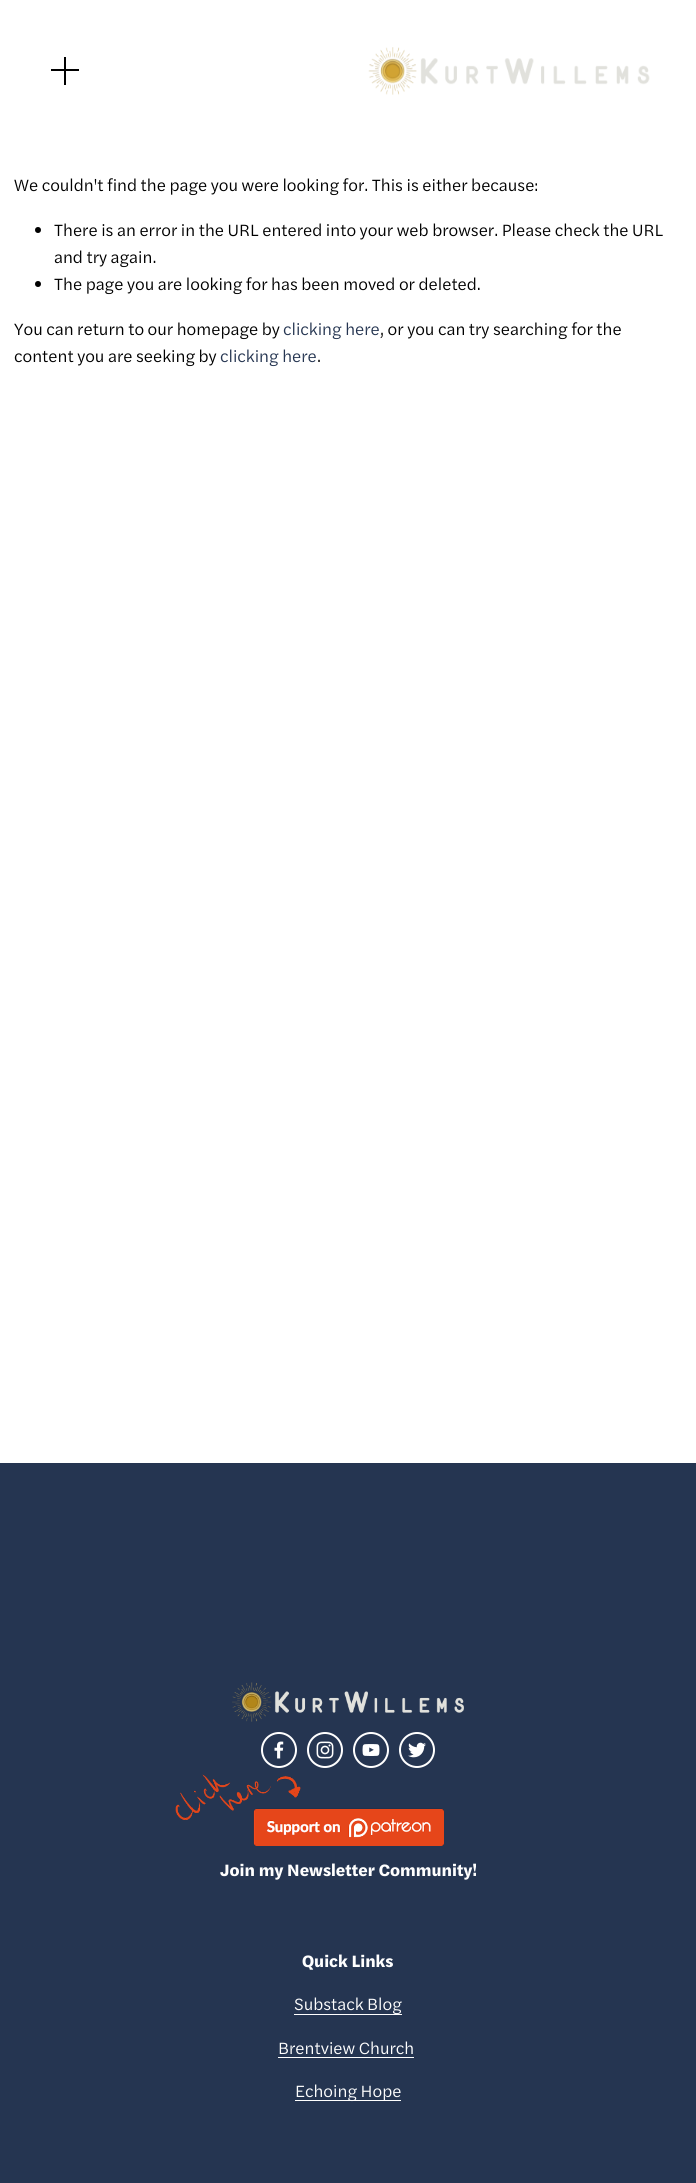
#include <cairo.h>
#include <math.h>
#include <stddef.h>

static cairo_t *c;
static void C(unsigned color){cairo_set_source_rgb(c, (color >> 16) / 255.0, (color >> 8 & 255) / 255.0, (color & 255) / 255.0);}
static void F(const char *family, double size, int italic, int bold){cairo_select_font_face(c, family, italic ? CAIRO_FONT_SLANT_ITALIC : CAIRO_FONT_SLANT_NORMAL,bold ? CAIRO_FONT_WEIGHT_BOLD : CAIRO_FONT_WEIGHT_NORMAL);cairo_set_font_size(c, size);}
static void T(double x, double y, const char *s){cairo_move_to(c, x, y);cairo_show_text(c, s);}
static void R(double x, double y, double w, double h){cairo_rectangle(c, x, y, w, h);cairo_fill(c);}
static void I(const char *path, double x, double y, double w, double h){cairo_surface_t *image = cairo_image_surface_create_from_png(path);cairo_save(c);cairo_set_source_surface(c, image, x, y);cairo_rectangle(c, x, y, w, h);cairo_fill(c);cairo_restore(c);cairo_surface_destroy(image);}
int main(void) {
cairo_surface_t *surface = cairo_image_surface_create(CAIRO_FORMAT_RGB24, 696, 2183);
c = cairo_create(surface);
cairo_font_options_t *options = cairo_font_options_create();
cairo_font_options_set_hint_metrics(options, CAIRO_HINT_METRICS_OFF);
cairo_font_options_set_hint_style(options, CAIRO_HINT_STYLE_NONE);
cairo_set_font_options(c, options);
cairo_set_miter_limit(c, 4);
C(0xffffff);
cairo_paint(c);
C(0x000000);
R(51,69,28,2);
R(64,57,2,28);
I("1.png",368,47,282,48);
F("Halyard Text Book",17.1,0,0);
T(14,191,"We couldn't find the page you were looking for. This is either because:");
cairo_new_path(c);
cairo_arc(c,38,230,3,0,2 * M_PI);
cairo_fill(c);
T(54,236,"There is an error in the URL entered into your web browser. Please check the URL");
T(54,263,"and try again.");
cairo_new_path(c);
cairo_arc(c,38,284,3,0,2 * M_PI);
cairo_fill(c);
T(54,290,"The page you are looking for has been moved or deleted.");
T(14,335,"You can return to our homepage by");
C(0x253551);
T(283,335,"clicking here");
C(0x000000);
T(380,335,", or you can try searching for the");
T(14,362,"content you are seeking by");
C(0x253551);
T(220,362,"clicking here");
C(0x000000);
T(317,362,".");
C(0x253551);
R(0,1463,696,720);
I("2.png",232,1682,232,40);
cairo_arc(c,279,1750,17,0,2 * M_PI);
C(0xffffff);
cairo_stroke(c);
I("3.png",274,1741,10,18);
cairo_arc(c,325,1750,17,0,2 * M_PI);
cairo_stroke(c);
I("4.png",316,1741,18,18);
cairo_arc(c,371,1750,17,0,2 * M_PI);
cairo_stroke(c);
I("5.png",362,1744,18,12);
cairo_arc(c,417,1750,17,0,2 * M_PI);
cairo_stroke(c);
I("6.png",408,1742,18,16);
I("7.png",175,1774,269,72);
F("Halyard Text",17.1,0,1);
T(220,1876,"Join my Newsletter Community!");
T(302,1967,"Quick Links");
R(294,2014,108,1);
F("Halyard Text Book",17.1,0,0);
T(294,2010,"Substack Blog");
T(278,2054,"Brentview Church");
R(278,2057,136,1);
R(295,2100,106,1);
T(295,2097,"Echoing Hope");
cairo_surface_write_to_png(surface, "o.png");
cairo_font_options_destroy(options);
cairo_destroy(c);
cairo_surface_destroy(surface);
return 0;
}
